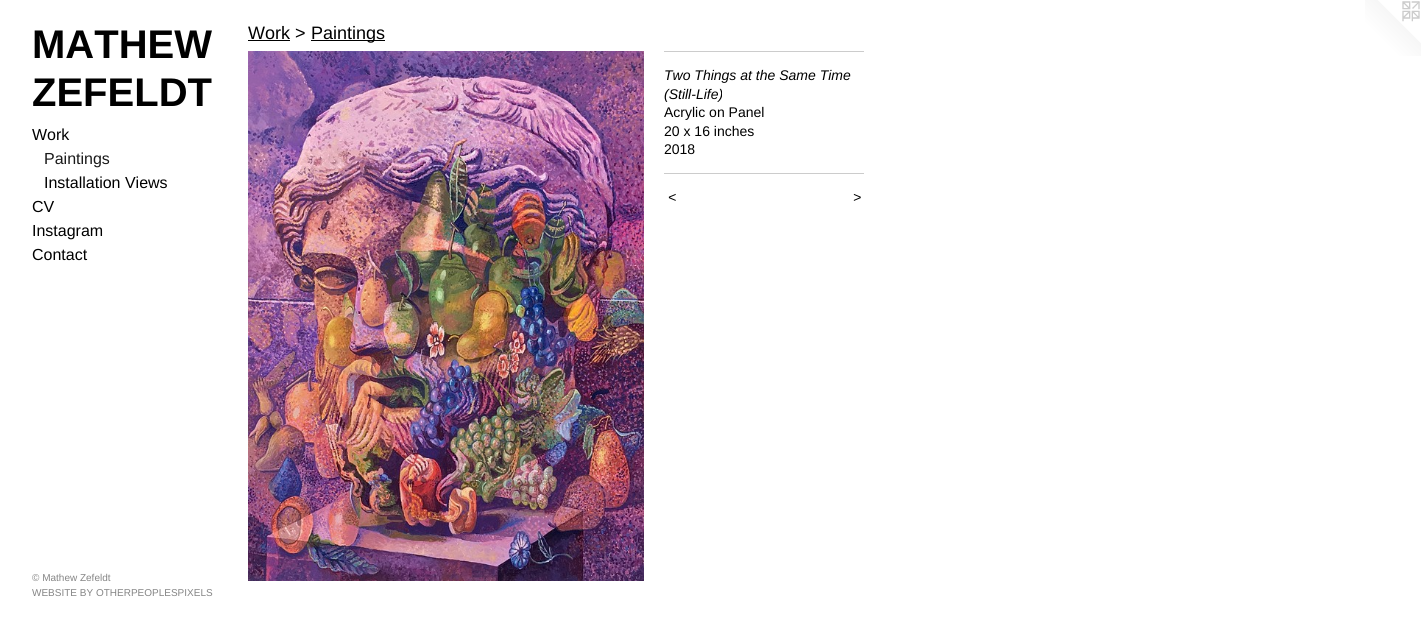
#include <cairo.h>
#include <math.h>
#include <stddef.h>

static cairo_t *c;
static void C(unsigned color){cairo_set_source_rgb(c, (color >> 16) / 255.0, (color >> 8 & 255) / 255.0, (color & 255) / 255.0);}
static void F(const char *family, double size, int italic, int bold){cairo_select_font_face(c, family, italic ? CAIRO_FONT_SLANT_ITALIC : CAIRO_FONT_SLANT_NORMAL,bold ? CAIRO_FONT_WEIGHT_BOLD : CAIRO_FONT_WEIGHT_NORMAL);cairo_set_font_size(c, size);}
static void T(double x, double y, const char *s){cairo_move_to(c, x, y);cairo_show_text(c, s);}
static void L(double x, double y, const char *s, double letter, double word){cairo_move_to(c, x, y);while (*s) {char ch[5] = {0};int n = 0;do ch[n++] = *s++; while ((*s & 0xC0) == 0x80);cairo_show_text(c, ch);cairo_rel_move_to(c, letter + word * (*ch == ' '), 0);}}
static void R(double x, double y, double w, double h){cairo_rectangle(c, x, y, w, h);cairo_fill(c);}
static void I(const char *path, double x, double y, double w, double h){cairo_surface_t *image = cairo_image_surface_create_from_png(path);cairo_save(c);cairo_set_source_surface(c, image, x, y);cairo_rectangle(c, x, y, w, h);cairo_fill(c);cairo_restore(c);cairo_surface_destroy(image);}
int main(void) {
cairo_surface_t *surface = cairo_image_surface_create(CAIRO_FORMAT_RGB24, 1421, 623);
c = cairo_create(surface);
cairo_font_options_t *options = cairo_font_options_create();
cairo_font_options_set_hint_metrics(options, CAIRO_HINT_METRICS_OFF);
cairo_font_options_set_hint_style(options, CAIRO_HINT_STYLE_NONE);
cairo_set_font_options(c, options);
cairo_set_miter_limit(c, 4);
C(0xffffff);
cairo_paint(c);
F("Liberation Sans",40,0,1);
C(0x000000);
T(32,58,"MATHEW");
T(32,106,"ZEFELDT");
F("Liberation Sans",16,0,0);
T(32,140,"Work");
C(0x1a1a1a);
T(44,164,"Paintings");
C(0x000000);
T(44,188,"Installation Views");
T(32,212,"CV");
T(32,236,"Instagram");
T(32,260,"Contact");
F("Liberation Sans",10,0,0);
C(0x858585);
T(32,581,"© Mathew Zefeldt");
T(32,596,"WEBSITE BY OTHERPEOPLESPIXELS");
F("Liberation Sans",18,0,0);
C(0x000000);
T(248,39,"Work >");
R(248,40,42,1);
R(311,40,74,1);
T(311,39,"Paintings");
I("1.png",248,51,396,530);
C(0xcccccc);
R(664,51,200,1);
F("Liberation Sans",14,1,0);
C(0x000000);
T(664,80,"Two Things at the Same Time");
T(664,99,"(Still-Life)");
F("Liberation Sans",14,0,0);
T(664,117,"Acrylic on Panel");
T(664,136,"20 x 16 inches");
T(664,154,"2018");
C(0xcccccc);
R(664,173,200,1);
F("Liberation Sans",14,1,0);
C(0x000000);
L(668,202,"<",1,0);
L(853,202,">",1,0);
I("2.png",1365,0,56,56);
cairo_surface_write_to_png(surface, "o.png");
cairo_font_options_destroy(options);
cairo_destroy(c);
cairo_surface_destroy(surface);
return 0;
}
